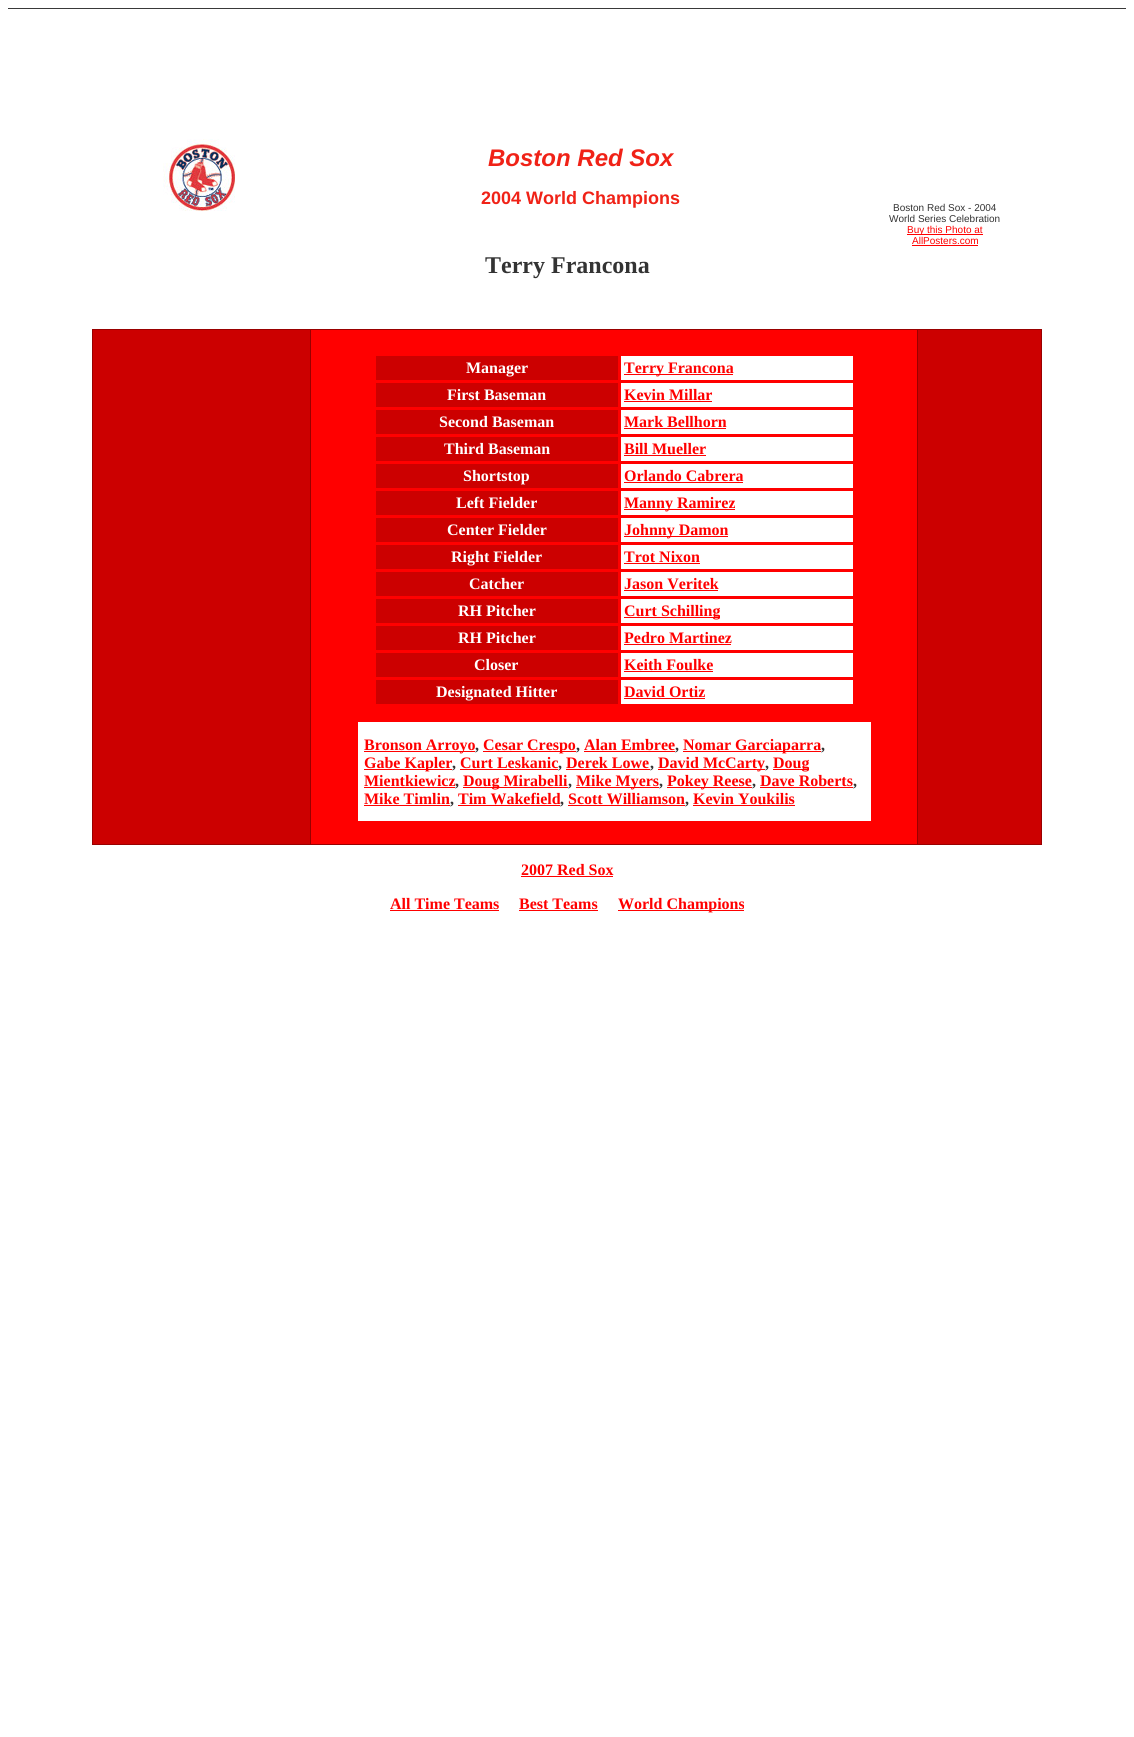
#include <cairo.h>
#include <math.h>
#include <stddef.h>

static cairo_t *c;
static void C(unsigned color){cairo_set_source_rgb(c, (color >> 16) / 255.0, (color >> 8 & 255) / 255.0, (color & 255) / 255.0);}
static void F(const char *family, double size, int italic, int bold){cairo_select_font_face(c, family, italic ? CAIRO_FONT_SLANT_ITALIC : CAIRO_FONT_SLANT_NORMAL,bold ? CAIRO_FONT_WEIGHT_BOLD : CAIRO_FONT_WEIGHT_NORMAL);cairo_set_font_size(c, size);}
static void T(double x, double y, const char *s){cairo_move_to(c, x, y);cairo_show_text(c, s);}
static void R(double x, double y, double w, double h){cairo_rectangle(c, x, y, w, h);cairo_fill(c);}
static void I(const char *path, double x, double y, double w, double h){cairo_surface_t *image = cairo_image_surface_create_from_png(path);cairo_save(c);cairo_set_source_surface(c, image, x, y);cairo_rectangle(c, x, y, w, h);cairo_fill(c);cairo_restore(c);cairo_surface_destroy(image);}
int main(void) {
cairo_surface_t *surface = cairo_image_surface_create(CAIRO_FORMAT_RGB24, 1134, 1737);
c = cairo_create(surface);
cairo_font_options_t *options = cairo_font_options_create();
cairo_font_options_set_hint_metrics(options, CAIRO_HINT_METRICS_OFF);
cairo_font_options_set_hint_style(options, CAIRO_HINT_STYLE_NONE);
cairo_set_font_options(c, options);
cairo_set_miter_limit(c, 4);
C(0xffffff);
cairo_paint(c);
C(0x393939);
R(8,8,1118,1);
I("1.png",163,139,72,72);
F("Liberation Sans",24,1,1);
C(0xf02217);
T(488,166,"Boston Red Sox");
F("Liberation Sans",18,0,1);
T(481,204,"2004 World Champions");
F("Liberation Sans",10,0,0);
C(0x333333);
T(893,211,"Boston Red Sox - 2004");
T(889,222,"World Series Celebration");
C(0xff0000);
R(907,234,76,1);
T(907,233,"Buy this Photo at");
T(912,244,"AllPosters.com");
R(912,245,66,1);
F("Liberation Serif",24,0,1);
C(0x333333);
T(485,273,"Terry Francona");
C(0x990000);
R(92,329,950,516);
C(0xcc0000);
R(93,330,217,514);
C(0xff0000);
R(311,330,606,514);
C(0xcc0000);
R(376,356,242,24);
F("Liberation Serif",16,0,1);
C(0xffffff);
T(466,373,"Manager");
R(621,356,232,24);
C(0xff0000);
R(624,374,109,1);
T(624,373,"Terry Francona");
C(0xcc0000);
R(376,383,242,24);
C(0xffffff);
T(447,400,"First Baseman");
R(621,383,232,24);
C(0xff0000);
T(624,400,"Kevin Millar");
R(624,401,88,1);
C(0xcc0000);
R(376,410,242,24);
C(0xffffff);
T(439,427,"Second Baseman");
R(621,410,232,24);
C(0xff0000);
T(624,427,"Mark Bellhorn");
R(624,428,102,1);
C(0xcc0000);
R(376,437,242,24);
C(0xffffff);
T(444,454,"Third Baseman");
R(621,437,232,24);
C(0xff0000);
T(624,454,"Bill Mueller");
R(624,455,82,1);
C(0xcc0000);
R(376,464,242,24);
C(0xffffff);
T(463,481,"Shortstop");
R(621,464,232,24);
C(0xff0000);
T(624,481,"Orlando Cabrera");
R(624,482,119,1);
C(0xcc0000);
R(376,491,242,24);
C(0xffffff);
T(456,508,"Left Fielder");
R(621,491,232,24);
C(0xff0000);
R(624,509,111,1);
T(624,508,"Manny Ramirez");
C(0xcc0000);
R(376,518,242,24);
C(0xffffff);
T(447,535,"Center Fielder");
R(621,518,232,24);
C(0xff0000);
R(624,536,104,1);
T(624,535,"Johnny Damon");
C(0xcc0000);
R(376,545,242,24);
C(0xffffff);
T(451,562,"Right Fielder");
R(621,545,232,24);
C(0xff0000);
T(624,562,"Trot Nixon");
R(624,563,76,1);
C(0xcc0000);
R(376,572,242,24);
C(0xffffff);
T(469,589,"Catcher");
R(621,572,232,24);
C(0xff0000);
T(624,589,"Jason Veritek");
R(624,590,94,1);
C(0xcc0000);
R(376,599,242,24);
C(0xffffff);
T(458,616,"RH Pitcher");
R(621,599,232,24);
C(0xff0000);
R(624,617,96,1);
T(624,616,"Curt Schilling");
C(0xcc0000);
R(376,626,242,24);
C(0xffffff);
T(458,643,"RH Pitcher");
R(621,626,232,24);
C(0xff0000);
T(624,643,"Pedro Martinez");
R(624,644,107,1);
C(0xcc0000);
R(376,653,242,24);
C(0xffffff);
T(474,670,"Closer");
R(621,653,232,24);
C(0xff0000);
T(624,670,"Keith Foulke");
R(624,671,89,1);
C(0xcc0000);
R(376,680,242,24);
C(0xffffff);
T(436,697,"Designated Hitter");
R(621,680,232,24);
C(0xff0000);
T(624,697,"David Ortiz");
R(624,698,81,1);
C(0xffffff);
R(358,722,513,99);
C(0xff0000);
R(364,751,111,1);
T(364,750,"Bronson Arroyo");
C(0x333333);
T(475,750,",");
C(0xff0000);
R(483,751,93,1);
T(483,750,"Cesar Crespo");
C(0x333333);
T(576,750,",");
C(0xff0000);
T(584,750,"Alan Embree");
C(0x333333);
T(675,750,",");
C(0xff0000);
R(584,751,91,1);
R(683,751,138,1);
T(683,750,"Nomar Garciaparra");
C(0x333333);
T(821,750,",");
C(0xff0000);
R(364,769,88,1);
T(364,768,"Gabe Kapler");
C(0x333333);
T(452,768,",");
C(0xff0000);
T(460,768,"Curt Leskanic");
C(0x333333);
T(558,768,",");
C(0xff0000);
R(460,769,98,1);
T(566,768,"Derek Lowe");
R(566,769,84,1);
C(0x333333);
T(650,768,",");
C(0xff0000);
R(658,769,107,1);
T(658,768,"David McCarty");
C(0x333333);
T(765,768,",");
C(0xff0000);
R(773,769,36,1);
T(773,768,"Doug");
T(364,786,"Mientkiewicz");
C(0x333333);
T(455,786,",");
C(0xff0000);
R(364,787,91,1);
R(463,787,105,1);
T(463,786,"Doug Mirabelli");
C(0x333333);
T(568,786,",");
C(0xff0000);
R(576,787,83,1);
T(576,786,"Mike Myers");
C(0x333333);
T(659,786,",");
C(0xff0000);
R(667,787,85,1);
T(667,786,"Pokey Reese");
C(0x333333);
T(752,786,",");
C(0xff0000);
T(760,786,"Dave Roberts");
R(760,787,93,1);
C(0x333333);
T(853,786,",");
C(0xff0000);
T(364,804,"Mike Timlin");
R(364,805,86,1);
C(0x333333);
T(450,804,",");
C(0xff0000);
T(458,804,"Tim Wakefield");
C(0x333333);
T(560,804,",");
C(0xff0000);
R(458,805,102,1);
T(568,804,"Scott Williamson");
C(0x333333);
T(685,804,",");
C(0xff0000);
R(568,805,117,1);
R(693,805,102,1);
T(693,804,"Kevin Youkilis");
C(0xcc0000);
R(918,330,123,514);
C(0xff0000);
T(521,875,"2007 Red Sox");
R(521,876,92,1);
T(390,909,"All Time Teams");
R(390,910,109,1);
T(519,909,"Best Teams");
R(519,910,79,1);
R(618,910,126,1);
T(618,909,"World Champions");
cairo_surface_write_to_png(surface, "o.png");
cairo_font_options_destroy(options);
cairo_destroy(c);
cairo_surface_destroy(surface);
return 0;
}
